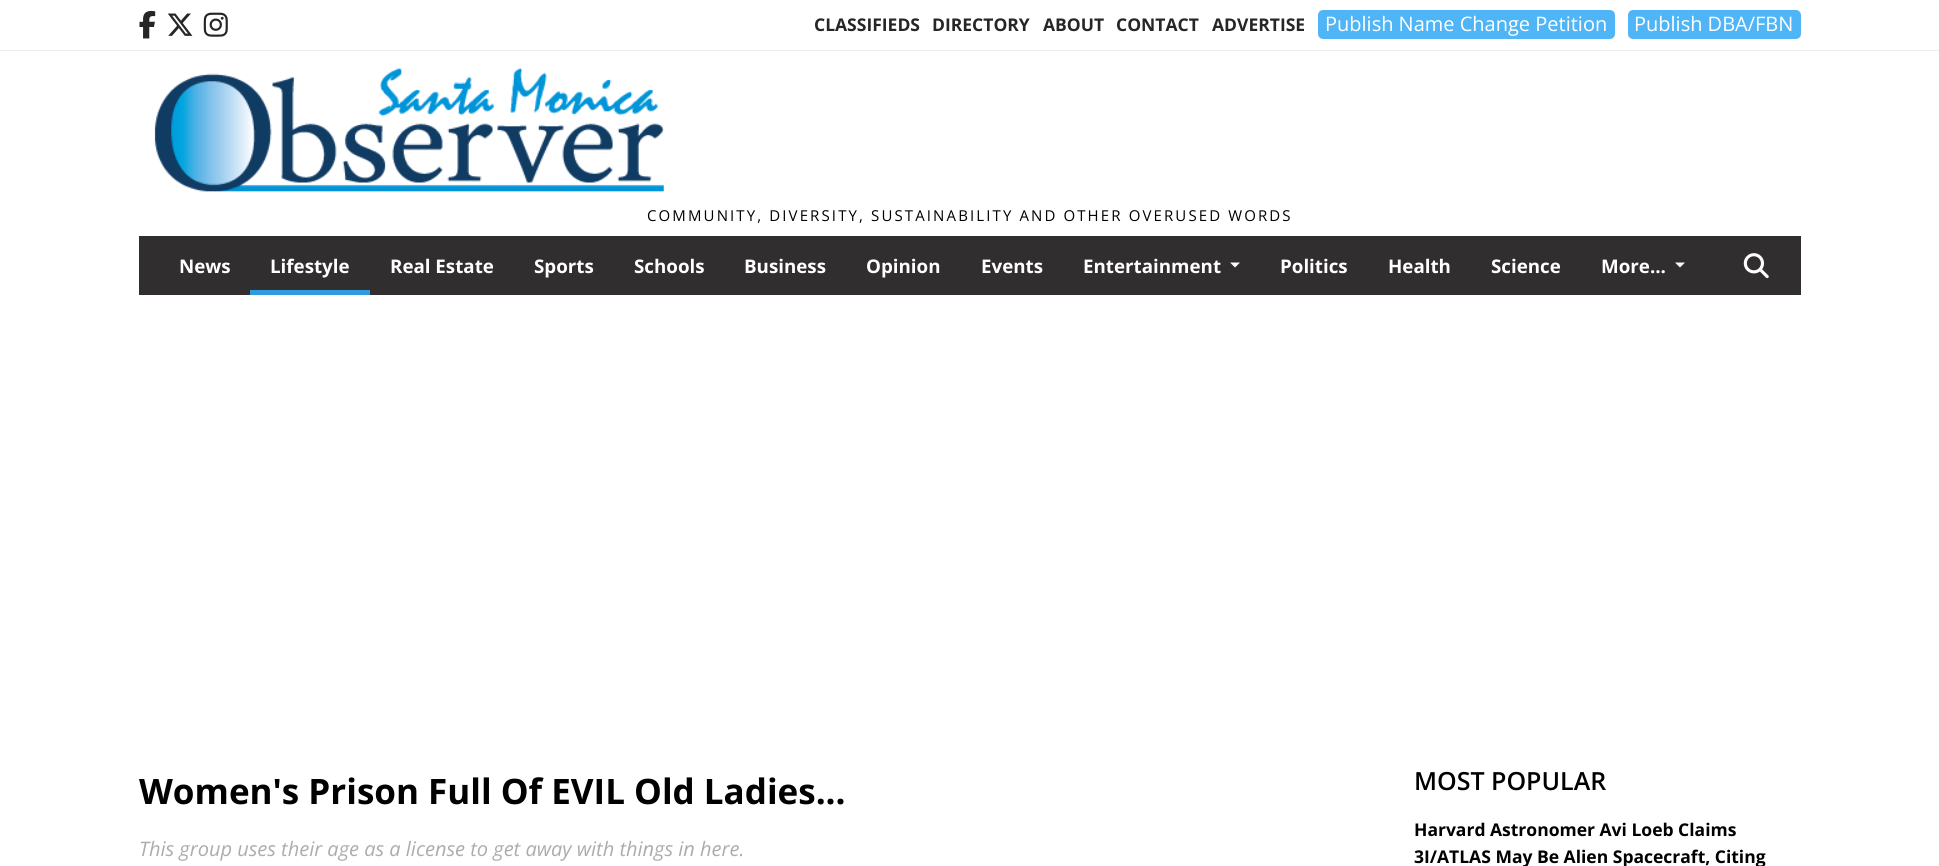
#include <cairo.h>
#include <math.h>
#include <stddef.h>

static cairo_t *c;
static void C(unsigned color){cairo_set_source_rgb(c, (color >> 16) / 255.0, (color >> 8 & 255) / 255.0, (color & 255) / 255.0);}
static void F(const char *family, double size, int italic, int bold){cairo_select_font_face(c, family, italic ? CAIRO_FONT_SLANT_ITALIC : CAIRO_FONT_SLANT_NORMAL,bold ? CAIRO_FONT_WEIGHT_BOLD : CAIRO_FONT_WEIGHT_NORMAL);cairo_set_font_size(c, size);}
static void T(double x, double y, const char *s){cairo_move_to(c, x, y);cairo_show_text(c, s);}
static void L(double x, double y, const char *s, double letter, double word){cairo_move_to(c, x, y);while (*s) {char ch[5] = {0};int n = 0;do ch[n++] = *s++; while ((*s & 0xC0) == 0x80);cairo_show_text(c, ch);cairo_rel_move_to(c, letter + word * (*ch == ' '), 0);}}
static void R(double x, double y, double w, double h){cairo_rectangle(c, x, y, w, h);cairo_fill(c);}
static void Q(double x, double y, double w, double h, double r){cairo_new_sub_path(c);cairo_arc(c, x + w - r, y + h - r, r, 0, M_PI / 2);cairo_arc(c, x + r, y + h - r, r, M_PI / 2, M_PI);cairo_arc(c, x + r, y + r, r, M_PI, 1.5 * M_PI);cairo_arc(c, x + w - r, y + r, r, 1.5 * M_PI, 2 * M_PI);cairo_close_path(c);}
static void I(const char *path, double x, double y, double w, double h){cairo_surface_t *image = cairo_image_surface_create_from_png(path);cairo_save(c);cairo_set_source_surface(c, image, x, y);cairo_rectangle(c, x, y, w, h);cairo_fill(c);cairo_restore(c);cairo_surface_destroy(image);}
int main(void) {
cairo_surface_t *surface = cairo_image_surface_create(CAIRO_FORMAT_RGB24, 1939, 866);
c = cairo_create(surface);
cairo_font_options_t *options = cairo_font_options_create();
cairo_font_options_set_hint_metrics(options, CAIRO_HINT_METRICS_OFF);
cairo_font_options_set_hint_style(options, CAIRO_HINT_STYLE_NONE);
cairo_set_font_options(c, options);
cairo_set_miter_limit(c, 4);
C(0xffffff);
cairo_paint(c);
C(0xededed);
R(0,50,1939,1);
I("1.png",139,10,17,29);
I("2.png",167,13,26,23);
I("3.png",203,12,25,25);
F("Open Sans",17.5,0,1);
C(0x262626);
T(814,31,"CLASSIFIEDS");
T(932,31,"DIRECTORY");
T(1043,31,"ABOUT");
T(1116,31,"CONTACT");
T(1212,31,"ADVERTISE");
C(0x50b5f6);
Q(1319.5,11.5,294,26,3.5);
cairo_fill_preserve(c);
cairo_set_line_width(c,3);
cairo_stroke(c);
F("Open Sans",20,0,0);
C(0xffffff);
T(1325,31,"Publish Name Change Petition");
C(0x50b5f6);
Q(1629.5,11.5,170,26,3.5);
cairo_fill_preserve(c);
cairo_stroke(c);
C(0xffffff);
T(1634,31,"Publish DBA/FBN");
I("4.png",154,68,510,124);
F("Open Sans",15,0,0);
C(0x000000);
L(647,221,"COMMUNITY, DIVERSITY, SUSTAINABILITY AND OTHER OVERUSED WORDS",2.12,0);
C(0x312e2f);
R(139,236,1662,59);
F("Open Sans",18.75,0,1);
C(0xffffff);
T(179,273,"News");
T(270,273,"Lifestyle");
C(0x2e9ae0);
R(250,290,120,5);
C(0xffffff);
T(390,273,"Real Estate");
T(534,273,"Sports");
T(634,273,"Schools");
T(744,273,"Business");
T(866,273,"Opinion");
T(981,273,"Events");
T(1083,273,"Entertainment");
cairo_new_path(c);
cairo_move_to(c,1230,262.5);
cairo_line_to(c,1240,262.5);
cairo_line_to(c,1235,267.5);
cairo_close_path(c);
cairo_fill(c);
T(1280,273,"Politics");
T(1388,273,"Health");
T(1491,273,"Science");
T(1601,273,"More...");
cairo_new_path(c);
cairo_move_to(c,1675,262.5);
cairo_line_to(c,1685,262.5);
cairo_line_to(c,1680,267.5);
cairo_close_path(c);
cairo_fill(c);
I("5.png",1743,253,26,26);
F("Open Sans",35,0,1);
C(0x000000);
T(139,804,"Women's Prison Full Of EVIL Old Ladies...");
F("Open Sans",20,1,0);
C(0xacacac);
T(139,856,"This group uses their age as a license to get away with things in here.");
F("Open Sans SemiBold",25,0,0);
C(0x000000);
T(1414,790,"MOST POPULAR");
F("Open Sans",17.5,0,1);
T(1414,836,"Harvard Astronomer Avi Loeb Claims");
T(1414,863,"3I/ATLAS May Be Alien Spacecraft, Citing");
cairo_surface_write_to_png(surface, "o.png");
cairo_font_options_destroy(options);
cairo_destroy(c);
cairo_surface_destroy(surface);
return 0;
}
